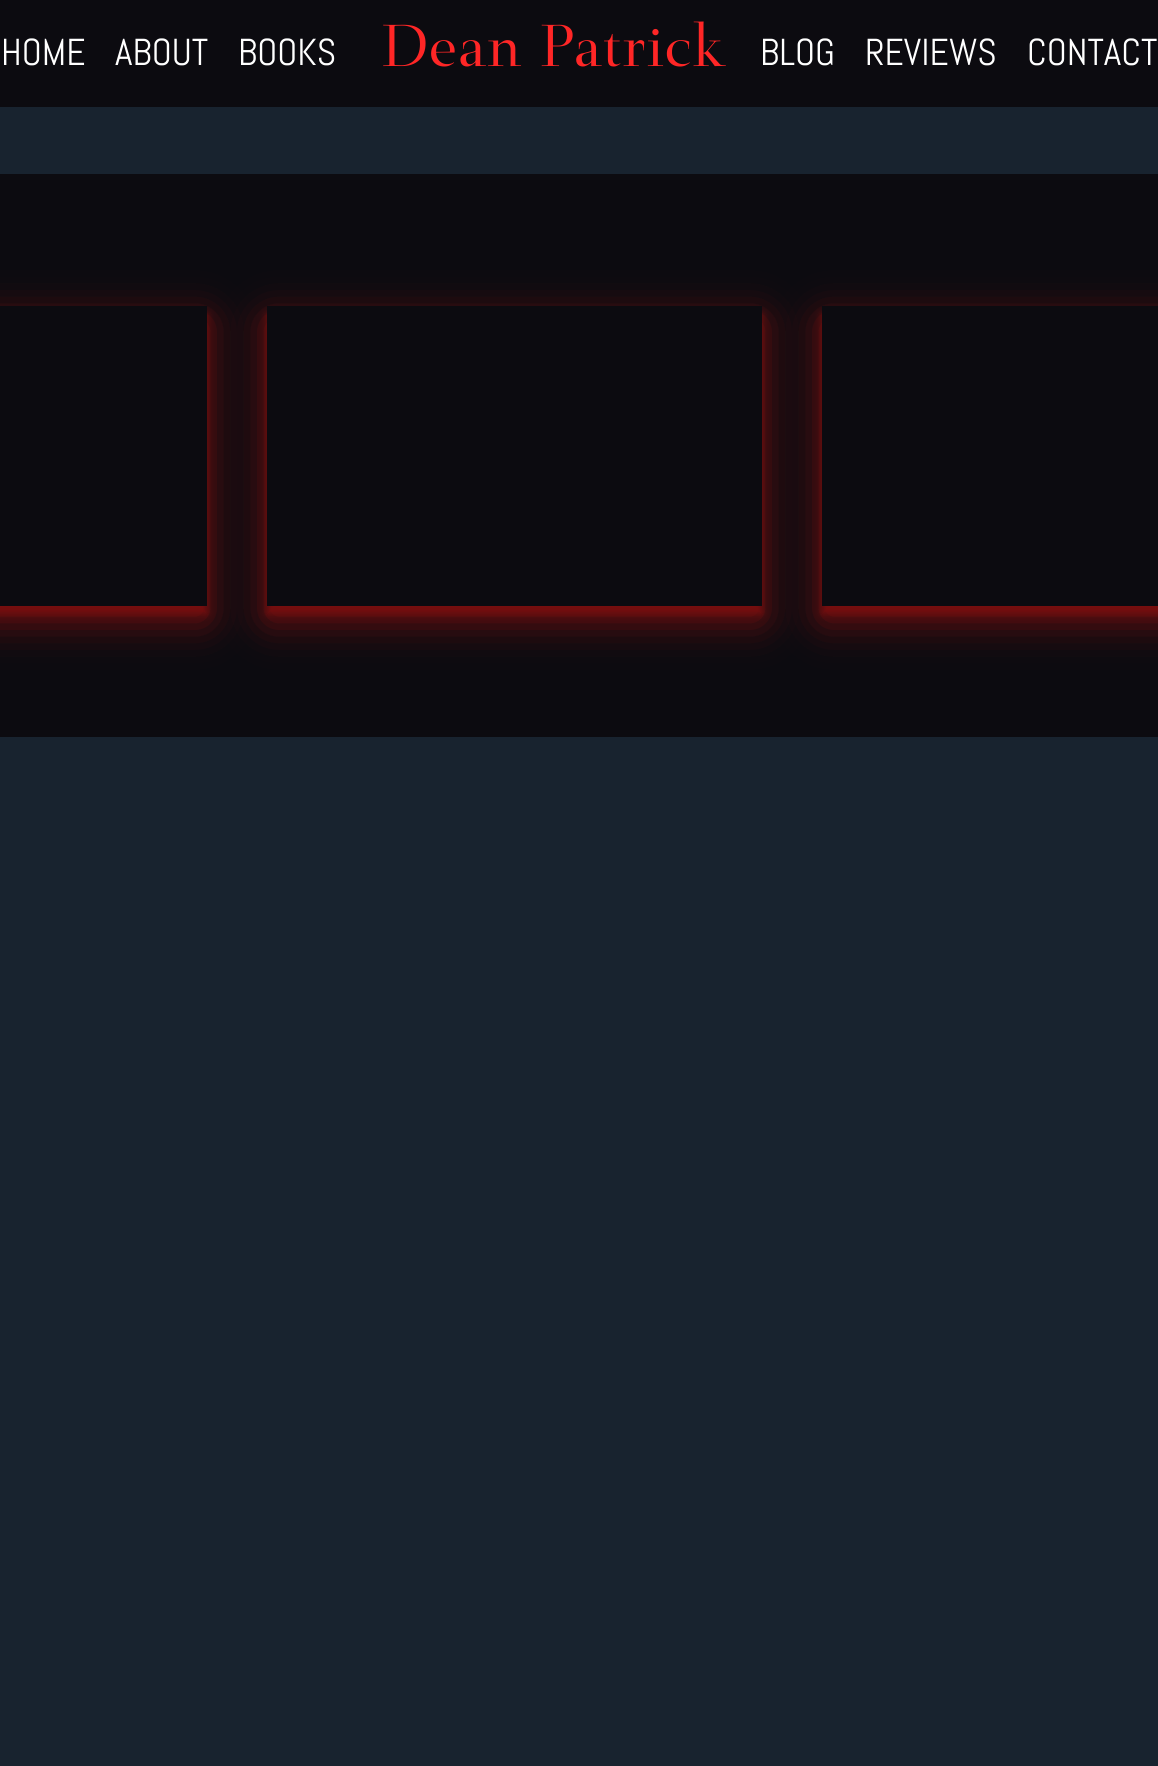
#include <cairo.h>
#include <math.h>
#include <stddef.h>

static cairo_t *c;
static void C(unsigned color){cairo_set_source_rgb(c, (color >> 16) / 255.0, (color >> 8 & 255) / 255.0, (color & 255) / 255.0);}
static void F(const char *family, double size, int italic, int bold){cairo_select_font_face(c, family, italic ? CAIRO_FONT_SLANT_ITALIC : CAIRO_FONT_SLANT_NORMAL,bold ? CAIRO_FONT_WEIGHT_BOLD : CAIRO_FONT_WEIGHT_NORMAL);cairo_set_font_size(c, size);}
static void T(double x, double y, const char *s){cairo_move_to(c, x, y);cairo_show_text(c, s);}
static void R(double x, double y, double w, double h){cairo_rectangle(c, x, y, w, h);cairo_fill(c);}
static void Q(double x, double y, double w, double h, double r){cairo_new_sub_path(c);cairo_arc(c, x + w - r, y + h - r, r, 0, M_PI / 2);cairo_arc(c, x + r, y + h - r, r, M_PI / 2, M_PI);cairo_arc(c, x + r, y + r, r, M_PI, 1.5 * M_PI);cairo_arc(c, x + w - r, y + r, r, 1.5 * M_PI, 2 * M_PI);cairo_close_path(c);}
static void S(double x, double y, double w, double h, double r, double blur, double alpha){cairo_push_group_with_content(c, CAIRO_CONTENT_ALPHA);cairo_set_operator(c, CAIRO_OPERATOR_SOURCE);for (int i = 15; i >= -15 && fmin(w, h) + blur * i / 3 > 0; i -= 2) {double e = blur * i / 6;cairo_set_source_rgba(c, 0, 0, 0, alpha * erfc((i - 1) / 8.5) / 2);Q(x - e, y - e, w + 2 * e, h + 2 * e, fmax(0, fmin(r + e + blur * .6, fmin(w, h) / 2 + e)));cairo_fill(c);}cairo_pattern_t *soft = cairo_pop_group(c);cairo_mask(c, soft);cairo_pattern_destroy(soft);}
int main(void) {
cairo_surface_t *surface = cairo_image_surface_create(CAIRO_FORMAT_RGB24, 1158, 1766);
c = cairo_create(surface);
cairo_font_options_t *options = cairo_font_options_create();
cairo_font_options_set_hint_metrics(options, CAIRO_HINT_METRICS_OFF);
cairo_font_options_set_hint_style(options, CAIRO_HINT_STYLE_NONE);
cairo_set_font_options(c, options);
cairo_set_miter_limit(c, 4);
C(0x18232f);
cairo_paint(c);
C(0x0c0b10);
R(0,0,1158,107);
F("Abel",37.5,0,0);
C(0xffffff);
T(1,65,"HOME");
T(115,65,"ABOUT");
T(238,65,"BOOKS");
F("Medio",63.5,0,0);
C(0xff2626);
T(382,66,"Dean Patrick");
F("Abel",37.5,0,0);
C(0xffffff);
T(760,65,"BLOG");
T(865,65,"REVIEWS");
T(1027,65,"CONTACT");
C(0x0c0b10);
R(0,174,1158,563);
cairo_save(c);
cairo_set_fill_rule(c,CAIRO_FILL_RULE_EVEN_ODD);
cairo_new_path(c);
cairo_move_to(c,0,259);
cairo_line_to(c,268,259);
cairo_line_to(c,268,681);
cairo_line_to(c,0,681);
cairo_close_path(c);
cairo_move_to(c,-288,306);
cairo_line_to(c,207,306);
cairo_line_to(c,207,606);
cairo_line_to(c,-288,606);
cairo_close_path(c);
cairo_clip(c);
C(0x770e0e);
S(-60,320,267,300,0,20,1);
cairo_restore(c);
cairo_save(c);
cairo_set_fill_rule(c,CAIRO_FILL_RULE_EVEN_ODD);
cairo_new_path(c);
cairo_move_to(c,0,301);
cairo_line_to(c,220,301);
cairo_line_to(c,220,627);
cairo_line_to(c,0,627);
cairo_close_path(c);
cairo_move_to(c,-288,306);
cairo_line_to(c,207,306);
cairo_line_to(c,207,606);
cairo_line_to(c,-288,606);
cairo_close_path(c);
cairo_clip(c);
C(0x770e0e);
S(-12,314,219,300,0,4,1);
cairo_restore(c);
cairo_save(c);
cairo_set_fill_rule(c,CAIRO_FILL_RULE_EVEN_ODD);
cairo_new_path(c);
cairo_move_to(c,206,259);
cairo_line_to(c,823,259);
cairo_line_to(c,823,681);
cairo_line_to(c,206,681);
cairo_close_path(c);
cairo_move_to(c,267,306);
cairo_line_to(c,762,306);
cairo_line_to(c,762,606);
cairo_line_to(c,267,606);
cairo_close_path(c);
cairo_clip(c);
C(0x770e0e);
S(267,320,495,300,0,20,1);
cairo_restore(c);
cairo_save(c);
cairo_set_fill_rule(c,CAIRO_FILL_RULE_EVEN_ODD);
cairo_new_path(c);
cairo_move_to(c,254,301);
cairo_line_to(c,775,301);
cairo_line_to(c,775,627);
cairo_line_to(c,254,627);
cairo_close_path(c);
cairo_move_to(c,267,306);
cairo_line_to(c,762,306);
cairo_line_to(c,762,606);
cairo_line_to(c,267,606);
cairo_close_path(c);
cairo_clip(c);
C(0x770e0e);
S(267,314,495,300,0,4,1);
cairo_restore(c);
cairo_save(c);
cairo_set_fill_rule(c,CAIRO_FILL_RULE_EVEN_ODD);
cairo_new_path(c);
cairo_move_to(c,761,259);
cairo_line_to(c,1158,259);
cairo_line_to(c,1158,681);
cairo_line_to(c,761,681);
cairo_close_path(c);
cairo_move_to(c,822,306);
cairo_line_to(c,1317,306);
cairo_line_to(c,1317,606);
cairo_line_to(c,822,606);
cairo_close_path(c);
cairo_clip(c);
C(0x770e0e);
S(822,320,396,300,0,20,1);
cairo_restore(c);
cairo_save(c);
cairo_set_fill_rule(c,CAIRO_FILL_RULE_EVEN_ODD);
cairo_new_path(c);
cairo_move_to(c,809,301);
cairo_line_to(c,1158,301);
cairo_line_to(c,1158,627);
cairo_line_to(c,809,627);
cairo_close_path(c);
cairo_move_to(c,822,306);
cairo_line_to(c,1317,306);
cairo_line_to(c,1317,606);
cairo_line_to(c,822,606);
cairo_close_path(c);
cairo_clip(c);
C(0x770e0e);
S(822,314,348,300,0,4,1);
cairo_restore(c);
cairo_surface_write_to_png(surface, "o.png");
cairo_font_options_destroy(options);
cairo_destroy(c);
cairo_surface_destroy(surface);
return 0;
}
